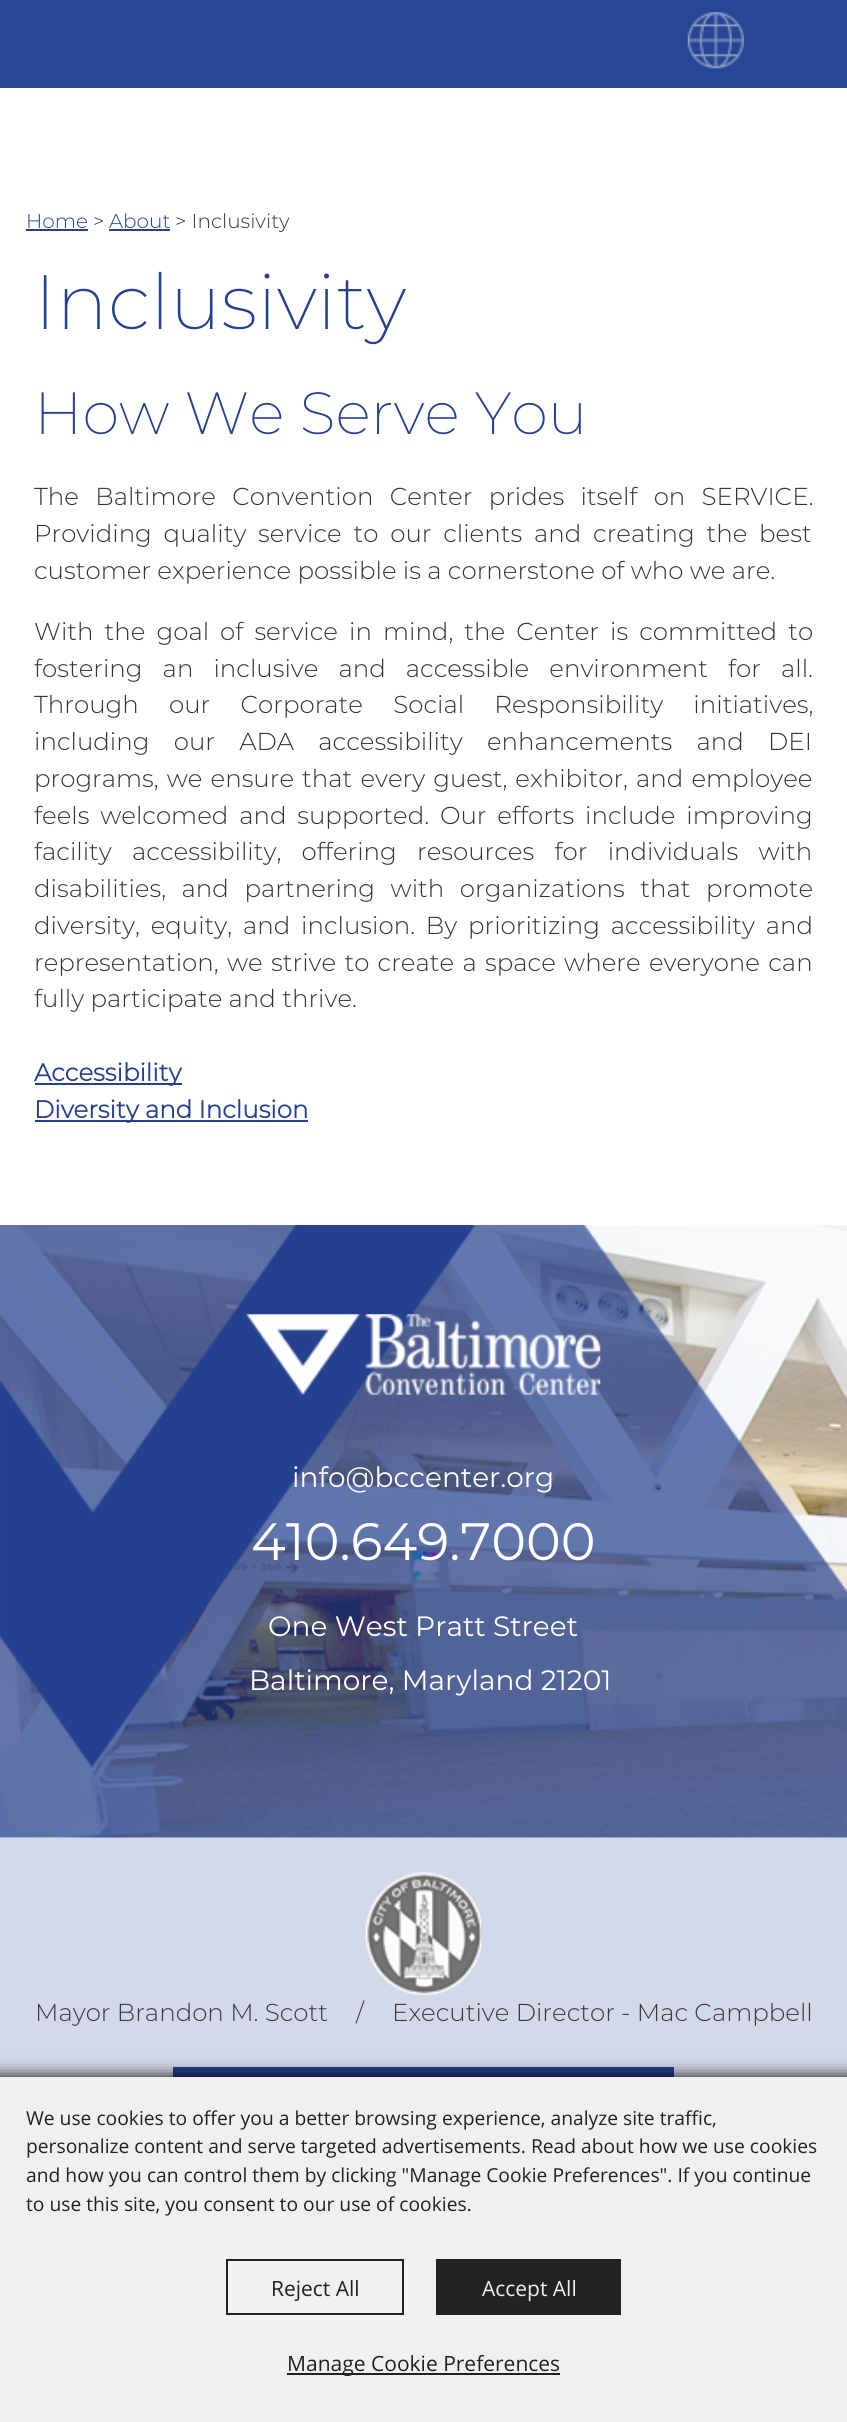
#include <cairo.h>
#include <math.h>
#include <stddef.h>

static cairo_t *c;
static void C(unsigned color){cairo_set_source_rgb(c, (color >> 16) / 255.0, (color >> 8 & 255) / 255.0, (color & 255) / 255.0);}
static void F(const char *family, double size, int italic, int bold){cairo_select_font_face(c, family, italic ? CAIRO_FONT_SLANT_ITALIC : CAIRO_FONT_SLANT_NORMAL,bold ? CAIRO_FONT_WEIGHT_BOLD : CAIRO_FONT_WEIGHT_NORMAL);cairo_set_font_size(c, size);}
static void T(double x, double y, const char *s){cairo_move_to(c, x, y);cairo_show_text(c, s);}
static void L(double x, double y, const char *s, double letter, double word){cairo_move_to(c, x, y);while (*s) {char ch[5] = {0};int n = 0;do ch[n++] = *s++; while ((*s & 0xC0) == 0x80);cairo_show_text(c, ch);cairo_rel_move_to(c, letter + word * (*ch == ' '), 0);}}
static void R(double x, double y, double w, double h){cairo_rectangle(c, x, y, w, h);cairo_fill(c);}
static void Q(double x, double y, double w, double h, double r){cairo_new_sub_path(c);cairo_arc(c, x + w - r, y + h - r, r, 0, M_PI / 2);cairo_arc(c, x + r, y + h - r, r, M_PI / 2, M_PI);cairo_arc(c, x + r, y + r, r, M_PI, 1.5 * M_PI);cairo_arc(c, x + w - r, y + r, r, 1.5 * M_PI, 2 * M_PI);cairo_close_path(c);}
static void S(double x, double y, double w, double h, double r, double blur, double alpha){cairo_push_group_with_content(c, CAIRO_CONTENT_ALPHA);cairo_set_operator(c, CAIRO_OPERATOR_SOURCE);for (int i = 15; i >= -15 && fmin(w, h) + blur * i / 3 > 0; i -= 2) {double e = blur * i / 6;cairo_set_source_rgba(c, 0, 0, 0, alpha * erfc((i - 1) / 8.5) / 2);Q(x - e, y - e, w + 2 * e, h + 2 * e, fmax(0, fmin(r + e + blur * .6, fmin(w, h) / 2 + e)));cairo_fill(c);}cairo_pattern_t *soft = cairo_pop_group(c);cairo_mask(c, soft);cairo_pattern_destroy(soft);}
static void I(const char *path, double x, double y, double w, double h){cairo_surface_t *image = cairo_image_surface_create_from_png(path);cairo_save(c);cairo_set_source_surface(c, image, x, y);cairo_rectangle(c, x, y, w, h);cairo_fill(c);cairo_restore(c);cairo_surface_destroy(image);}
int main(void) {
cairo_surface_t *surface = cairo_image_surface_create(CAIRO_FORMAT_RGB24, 847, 2422);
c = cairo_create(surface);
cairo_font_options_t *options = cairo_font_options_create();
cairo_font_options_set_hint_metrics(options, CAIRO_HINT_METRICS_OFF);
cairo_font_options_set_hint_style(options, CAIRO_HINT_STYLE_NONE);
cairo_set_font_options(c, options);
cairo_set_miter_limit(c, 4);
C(0xffffff);
cairo_paint(c);
C(0x274696);
R(0,0,847,88);
I("1.png",687,12,57,57);
F("Montserrat Light",20,0,0);
C(0x25408f);
T(26,228,"Home");
R(26,229,62,2);
C(0x333333);
T(93,228,">");
C(0x25408f);
T(109,228,"About");
R(109,229,61,2);
C(0x333333);
T(175,228,"> Inclusivity");
F("Montserrat ExtraLight",77,0,0);
C(0x25408f);
T(34,329,"Inclusivity");
F("Montserrat ExtraLight",59.5,0,0);
T(34,434,"How We Serve You");
F("Montserrat Light",24.5,0,0);
C(0x333333);
L(34,505,"The Baltimore Convention Center prides itself on SERVICE.",0,10);
L(34,542,"Providing quality service to our clients and creating the best",0,5.5);
T(34,579,"customer experience possible is a cornerstone of who we are.");
L(34,640,"With the goal of service in mind, the Center is committed to",0,4.75);
L(34,677,"fostering an inclusive and accessible environment for all.",0,13.75);
L(34,713,"Through our Corporate Social Responsibility initiatives,",0,24);
L(34,750,"including our ADA accessibility enhancements and DEI",0,18);
L(34,787,"programs, we ensure that every guest, exhibitor, and employee",0,1.75);
L(34,824,"feels welcomed and supported. Our efforts include improving",0,4.5);
L(34,860,"facility accessibility, offering resources for individuals with",0,14);
L(34,897,"disabilities, and partnering with organizations that promote",0,9.25);
L(34,934,"diversity, equity, and inclusion. By prioritizing accessibility and",0,4.5);
L(34,971,"representation, we strive to create a space where everyone can",0,2);
T(34,1007,"fully participate and thrive.");
C(0x25408f);
R(35,1083,147,2);
F("Montserrat",24.5,0,1);
T(34,1081,"Accessibility");
R(35,1120,273,2);
T(34,1118,"Diversity and Inclusion");
I("2.png",0,1225,847,613);
I("3.png",0,1225,847,613);
I("4.png",246,1314,355,81);
F("Montserrat",28,0,0);
C(0xffffff);
T(292,1487,"info@bccenter.org");
F("Montserrat",52.5,0,0);
T(251,1560,"410.649.7000");
F("Montserrat",28,0,0);
T(268,1636,"One West Pratt Street");
T(249,1690,"Baltimore, Maryland 21201");
C(0xd3d9e9);
R(0,1838,847,239);
I("5.png",365,1872,117,123);
F("Montserrat Light",24.5,0,0);
C(0x393939);
T(35,2021,"Mayor Brandon M. Scott");
T(356,2021,"/");
T(392,2021,"Executive Director - Mac Campbell");
C(0x25408f);
R(173,2067,501,10);
C(0x000000);
S(-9,2077,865,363,0,9,1);
C(0xf0f0f0);
R(0,2077,847,345);
F("Open Sans",19.25,0,0);
C(0x222222);
T(26,2125,"We use cookies to offer you a better browsing experience, analyze site traffic,");
T(26,2153,"personalize content and serve targeted advertisements. Read about how we use cookies");
T(26,2182,"and how you can control them by clicking \"Manage Cookie Preferences\". If you continue");
T(26,2211,"to use this site, you consent to our use of cookies.");
cairo_rectangle(c,227,2260,176,54);
cairo_stroke(c);
F("Open Sans",21,0,0);
T(271,2296,"Reject All");
R(436,2259,185,56);
C(0xf0f0f0);
T(482,2296,"Accept All");
C(0x222222);
R(287,2373,273,2);
T(287,2371,"Manage Cookie Preferences");
cairo_surface_write_to_png(surface, "o.png");
cairo_font_options_destroy(options);
cairo_destroy(c);
cairo_surface_destroy(surface);
return 0;
}
